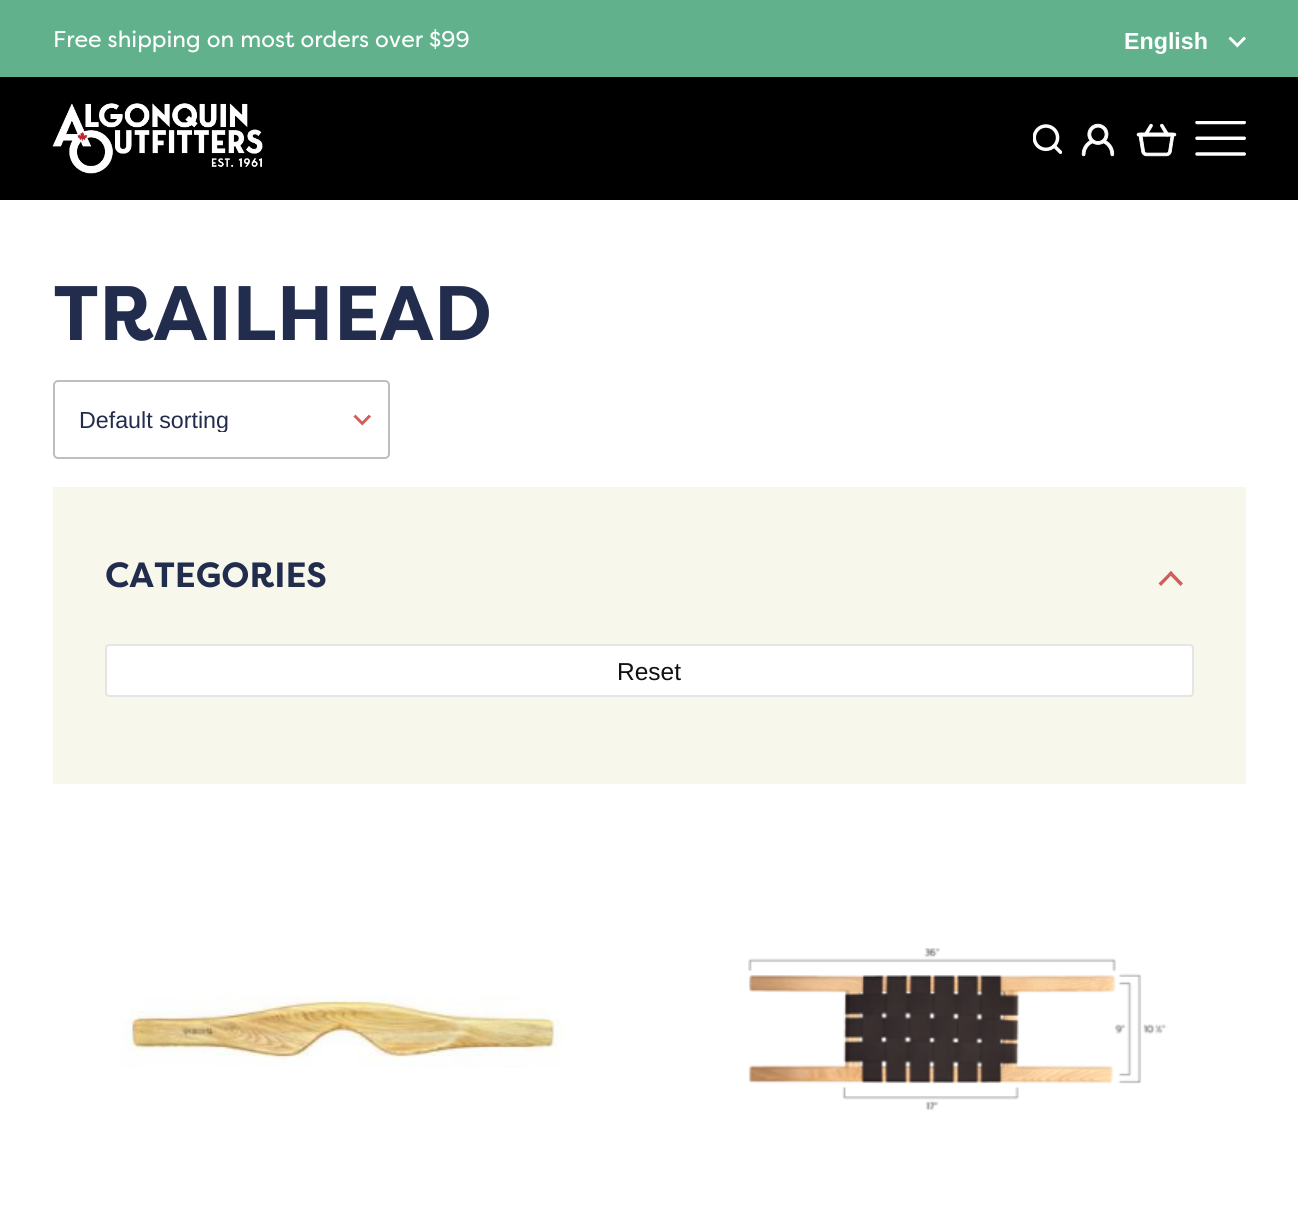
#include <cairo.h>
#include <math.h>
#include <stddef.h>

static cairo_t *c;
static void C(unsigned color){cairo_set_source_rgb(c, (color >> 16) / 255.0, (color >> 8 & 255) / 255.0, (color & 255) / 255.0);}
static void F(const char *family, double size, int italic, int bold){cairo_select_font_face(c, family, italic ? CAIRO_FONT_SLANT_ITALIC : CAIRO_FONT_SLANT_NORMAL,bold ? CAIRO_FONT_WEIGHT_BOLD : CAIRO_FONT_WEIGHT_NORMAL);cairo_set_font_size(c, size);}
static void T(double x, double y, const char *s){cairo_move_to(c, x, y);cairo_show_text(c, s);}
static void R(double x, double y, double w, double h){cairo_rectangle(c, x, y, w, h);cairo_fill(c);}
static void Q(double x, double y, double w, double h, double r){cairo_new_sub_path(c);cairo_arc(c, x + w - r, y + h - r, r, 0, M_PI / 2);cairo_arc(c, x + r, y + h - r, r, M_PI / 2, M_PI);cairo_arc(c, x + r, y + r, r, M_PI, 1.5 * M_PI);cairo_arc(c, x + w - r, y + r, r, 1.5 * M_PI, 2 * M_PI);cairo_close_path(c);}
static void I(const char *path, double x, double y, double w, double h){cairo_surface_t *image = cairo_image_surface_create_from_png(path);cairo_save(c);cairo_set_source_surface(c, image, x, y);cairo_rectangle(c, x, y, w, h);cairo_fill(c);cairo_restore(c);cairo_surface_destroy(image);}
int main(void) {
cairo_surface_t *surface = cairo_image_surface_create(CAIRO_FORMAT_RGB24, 1298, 1214);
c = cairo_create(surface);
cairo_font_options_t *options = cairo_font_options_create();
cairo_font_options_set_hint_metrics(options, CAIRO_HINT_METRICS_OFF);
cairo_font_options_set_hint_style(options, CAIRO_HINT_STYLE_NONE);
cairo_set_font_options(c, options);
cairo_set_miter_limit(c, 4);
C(0xffffff);
cairo_paint(c);
C(0x61b28c);
R(0,0,1298,77);
F("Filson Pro",22.75,0,0);
C(0xffffff);
T(53,47,"Free shipping on most orders over $99");
I("1.png",1228,36,18,12);
F("Liberation Sans",23.25,0,1);
T(1124,49,"English");
C(0x000000);
R(0,77,1298,123);
I("2.png",52,103,211,71);
I("3.png",1033,124,29,30);
I("4.png",1081,123,34,34);
I("5.png",1136,123,41,34);
I("6.png",1195,121,51,35);
F("Filson Pro",77,0,1);
C(0x222c4d);
T(53,340,"TRAILHEAD");
I("7.png",353,414,18,12);
Q(54,381,335,77,4);
C(0xbebebe);
cairo_stroke(c);
cairo_save(c);
cairo_rectangle(c,79,406,285,26);
cairo_clip(c);
F("Liberation Sans",23.25,0,0);
C(0x222c4d);
T(79,428,"Default sorting");
cairo_restore(c);
C(0xf7f7ec);
R(53,487,1193,297);
F("Filson Pro",35,0,1);
C(0x222c4d);
T(105,587,"CATEGORIES");
C(0xce5f5b);
cairo_new_path(c);
cairo_move_to(c,1173,573.5);
cairo_line_to(c,1161,586);
cairo_line_to(c,1158.5,583.5);
cairo_line_to(c,1171,571);
cairo_close_path(c);
cairo_fill(c);
cairo_new_path(c);
cairo_move_to(c,1183,583.5);
cairo_line_to(c,1180.5,586);
cairo_line_to(c,1168.5,573.5);
cairo_line_to(c,1171,571);
cairo_close_path(c);
cairo_fill(c);
C(0xffffff);
Q(106,645,1087,51,3);
cairo_fill_preserve(c);
C(0xe5e5e5);
cairo_stroke(c);
F("Liberation Sans",24.5,0,0);
C(0x111111);
T(617,680,"Reset");
I("8.png",119,995,445,73);
I("9.png",748,948,419,162);
cairo_surface_write_to_png(surface, "o.png");
cairo_font_options_destroy(options);
cairo_destroy(c);
cairo_surface_destroy(surface);
return 0;
}
